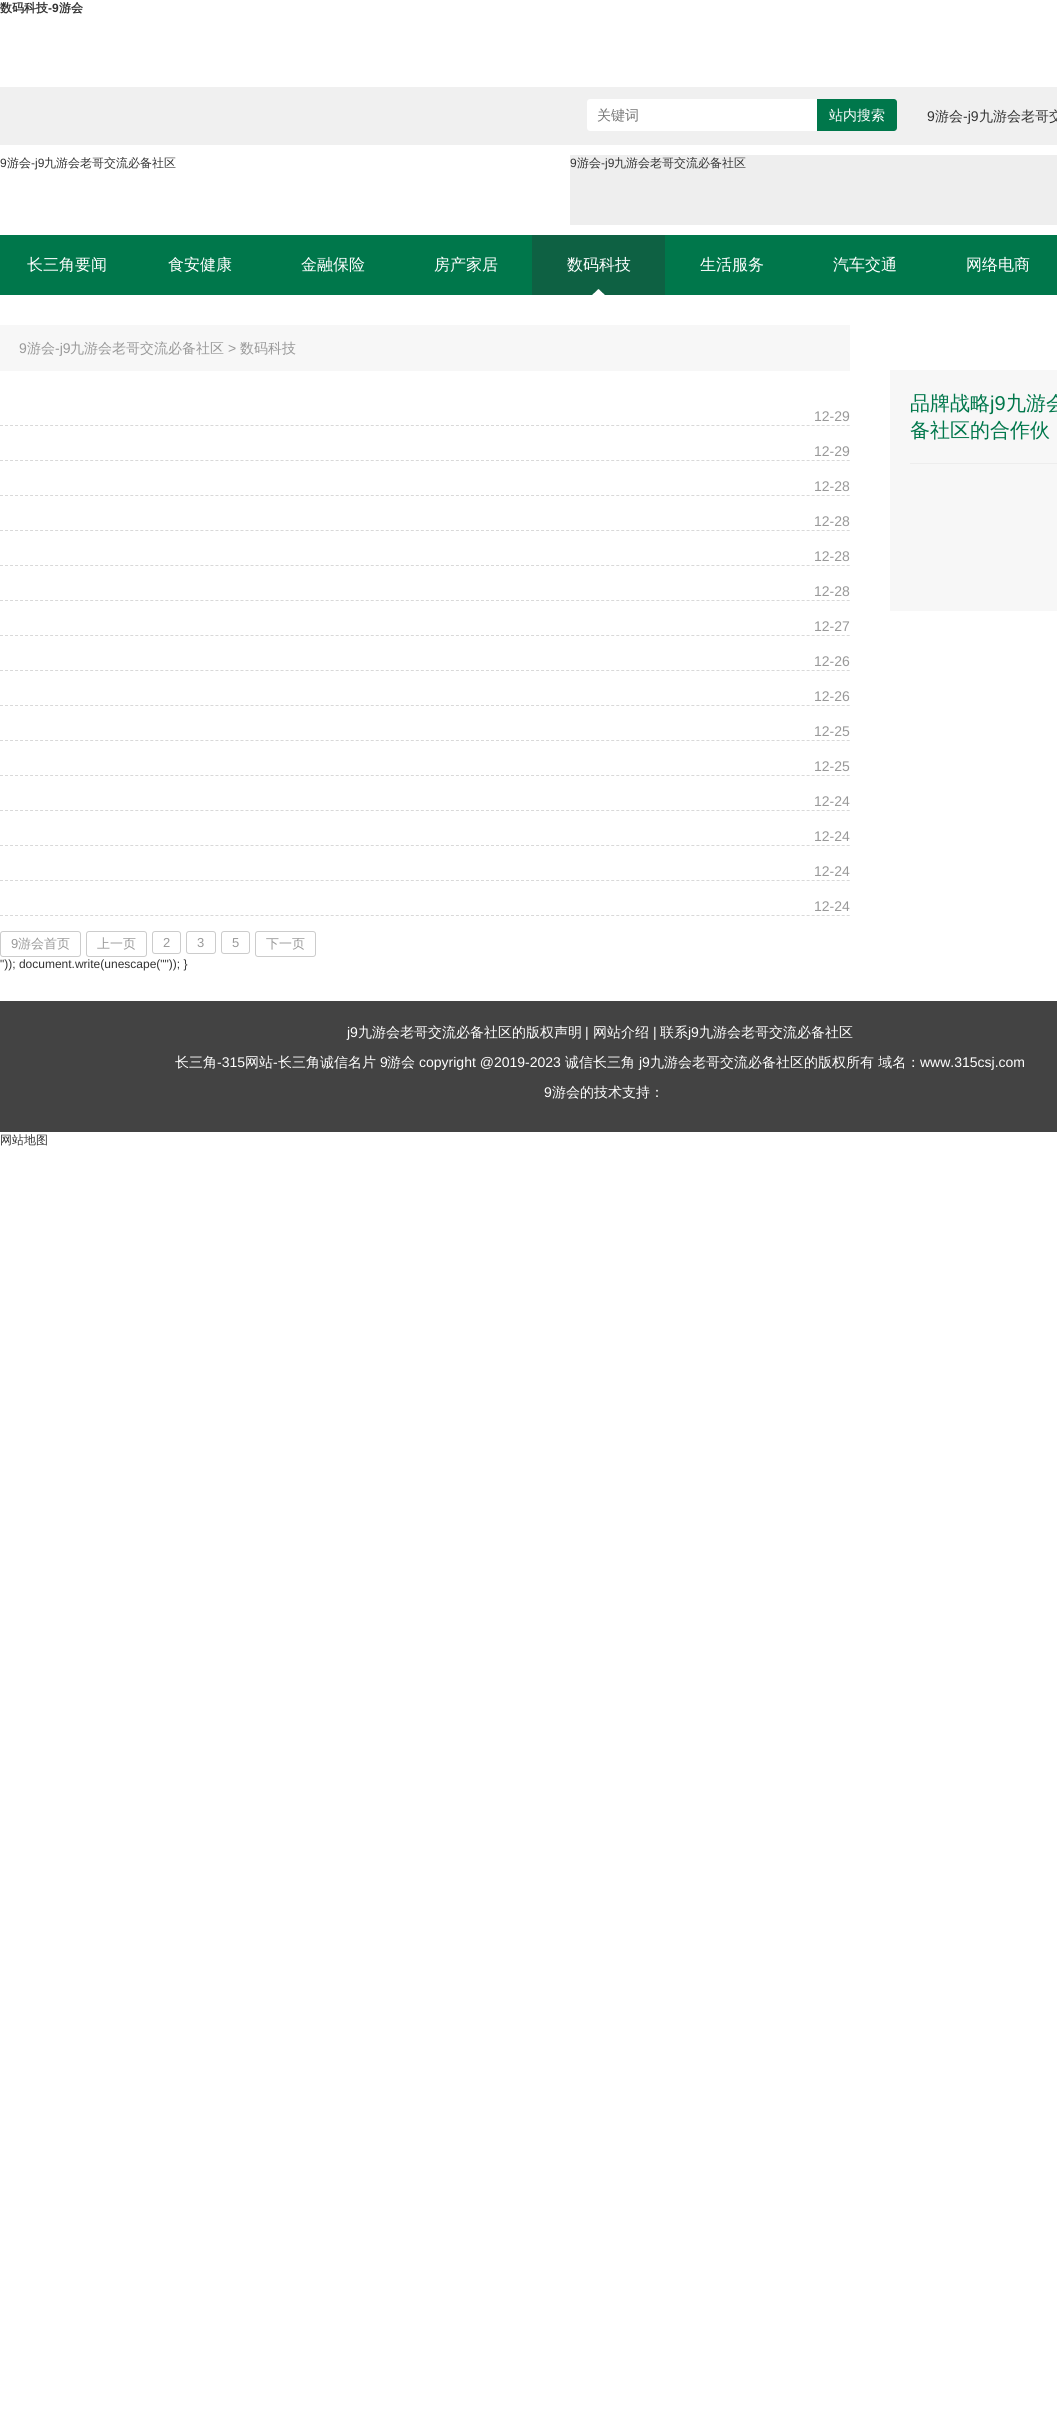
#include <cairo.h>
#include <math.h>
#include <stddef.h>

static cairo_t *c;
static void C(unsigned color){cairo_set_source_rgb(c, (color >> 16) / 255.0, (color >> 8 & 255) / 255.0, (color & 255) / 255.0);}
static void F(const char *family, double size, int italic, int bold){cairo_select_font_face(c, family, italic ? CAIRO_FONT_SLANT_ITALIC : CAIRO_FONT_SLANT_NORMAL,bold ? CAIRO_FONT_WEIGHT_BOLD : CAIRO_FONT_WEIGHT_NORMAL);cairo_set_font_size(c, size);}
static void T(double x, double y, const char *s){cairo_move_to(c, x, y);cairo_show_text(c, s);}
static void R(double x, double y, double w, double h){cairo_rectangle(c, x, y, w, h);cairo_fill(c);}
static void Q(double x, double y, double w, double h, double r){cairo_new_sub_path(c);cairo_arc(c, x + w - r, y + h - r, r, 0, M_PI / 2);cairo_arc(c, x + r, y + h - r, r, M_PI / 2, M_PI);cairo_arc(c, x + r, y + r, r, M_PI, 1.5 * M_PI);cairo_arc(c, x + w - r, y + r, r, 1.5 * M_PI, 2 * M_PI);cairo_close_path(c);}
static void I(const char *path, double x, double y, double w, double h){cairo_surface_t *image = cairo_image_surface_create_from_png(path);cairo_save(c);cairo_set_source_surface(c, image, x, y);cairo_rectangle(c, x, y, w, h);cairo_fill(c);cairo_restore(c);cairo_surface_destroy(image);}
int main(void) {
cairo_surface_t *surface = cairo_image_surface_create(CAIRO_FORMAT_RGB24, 1057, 2425);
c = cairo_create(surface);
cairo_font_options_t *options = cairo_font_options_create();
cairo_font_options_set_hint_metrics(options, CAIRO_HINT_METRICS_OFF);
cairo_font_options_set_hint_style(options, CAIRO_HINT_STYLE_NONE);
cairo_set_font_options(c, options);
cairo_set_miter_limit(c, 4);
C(0xffffff);
cairo_paint(c);
F("WenQuanYi Zen Hei",12,0,1);
C(0x333333);
T(0,12,"数码科技");
F("Liberation Sans",12,0,1);
T(48,12,"-9");
F("WenQuanYi Zen Hei",12,0,1);
T(59,12,"游会");
C(0xf0f0f0);
R(0,87,1057,58);
C(0xffffff);
cairo_new_path(c);
cairo_move_to(c,590,99);
cairo_line_to(c,817,99);
cairo_line_to(c,817,131);
cairo_line_to(c,590,131);
cairo_curve_to(c,588.5,131,587,129.5,587,128);
cairo_line_to(c,587,102);
cairo_curve_to(c,587,100.5,588.5,99,590,99);
cairo_close_path(c);
cairo_fill(c);
F("WenQuanYi Zen Hei Medium",14,0,0);
C(0x757575);
T(597,120,"关键词");
C(0x00774b);
cairo_new_path(c);
cairo_move_to(c,817,99);
cairo_line_to(c,894,99);
cairo_curve_to(c,895.5,99,897,100.5,897,102);
cairo_line_to(c,897,128);
cairo_curve_to(c,897,129.5,895.5,131,894,131);
cairo_line_to(c,817,131);
cairo_close_path(c);
cairo_fill(c);
C(0xffffff);
T(829,120,"站内搜索");
F("Liberation Sans",14,0,0);
C(0x333333);
T(927,121,"9");
F("WenQuanYi Zen Hei Medium",14,0,0);
T(935,121,"游会");
F("Liberation Sans",14,0,0);
T(963,121,"-j9");
F("WenQuanYi Zen Hei Medium",14,0,0);
T(979,121,"九游会老哥交");
F("Liberation Sans",12,0,0);
T(0,167,"9");
F("WenQuanYi Zen Hei Medium",12,0,0);
T(7,167,"游会");
F("Liberation Sans",12,0,0);
T(31,167,"-j9");
F("WenQuanYi Zen Hei Medium",12,0,0);
T(44,167,"九游会老哥交流必备社区");
C(0xeeeeee);
R(570,155,487,70);
F("Liberation Sans",12,0,0);
C(0x333333);
T(570,167,"9");
F("WenQuanYi Zen Hei Medium",12,0,0);
T(577,167,"游会");
F("Liberation Sans",12,0,0);
T(601,167,"-j9");
F("WenQuanYi Zen Hei Medium",12,0,0);
T(614,167,"九游会老哥交流必备社区");
C(0x00774b);
R(0,235,1057,60);
F("WenQuanYi Zen Hei Medium",16,0,0);
C(0xffffff);
T(27,270,"长三角要闻");
T(168,270,"食安健康");
T(301,270,"金融保险");
T(434,270,"房产家居");
I("1.png",532,235,133,60);
T(567,270,"数码科技");
T(700,270,"生活服务");
T(833,270,"汽车交通");
T(966,270,"网络电商");
C(0xf7f7f7);
R(0,325,850,46);
F("Liberation Sans",14,0,0);
C(0x999999);
T(19,353,"9");
F("WenQuanYi Zen Hei Medium",14,0,0);
T(27,353,"游会");
F("Liberation Sans",14,0,0);
T(55,353,"-j9");
F("WenQuanYi Zen Hei Medium",14,0,0);
T(70,353,"九游会老哥交流必备社区");
F("Liberation Sans",14,0,0);
T(228,353,">");
F("WenQuanYi Zen Hei Medium",14,0,0);
T(240,353,"数码科技");
cairo_new_path(c);
cairo_move_to(c,0,425.5);
cairo_line_to(c,850,425.5);
C(0xd9d9d9);
cairo_set_line_width(c,1);
cairo_set_dash(c,(double[]){3,2.01},2,0);
cairo_stroke(c);
F("Liberation Sans",14,0,0);
C(0x999999);
T(814,421,"12-29");
cairo_new_path(c);
cairo_move_to(c,0,460.5);
cairo_line_to(c,850,460.5);
C(0xd9d9d9);
cairo_stroke(c);
C(0x999999);
T(814,456,"12-29");
cairo_new_path(c);
cairo_move_to(c,0,495.5);
cairo_line_to(c,850,495.5);
C(0xd9d9d9);
cairo_stroke(c);
C(0x999999);
T(814,491,"12-28");
cairo_new_path(c);
cairo_move_to(c,0,530.5);
cairo_line_to(c,850,530.5);
C(0xd9d9d9);
cairo_stroke(c);
C(0x999999);
T(814,526,"12-28");
cairo_new_path(c);
cairo_move_to(c,0,565.5);
cairo_line_to(c,850,565.5);
C(0xd9d9d9);
cairo_stroke(c);
C(0x999999);
T(814,561,"12-28");
cairo_new_path(c);
cairo_move_to(c,0,600.5);
cairo_line_to(c,850,600.5);
C(0xd9d9d9);
cairo_stroke(c);
C(0x999999);
T(814,596,"12-28");
cairo_new_path(c);
cairo_move_to(c,0,635.5);
cairo_line_to(c,850,635.5);
C(0xd9d9d9);
cairo_stroke(c);
C(0x999999);
T(814,631,"12-27");
cairo_new_path(c);
cairo_move_to(c,0,670.5);
cairo_line_to(c,850,670.5);
C(0xd9d9d9);
cairo_stroke(c);
C(0x999999);
T(814,666,"12-26");
cairo_new_path(c);
cairo_move_to(c,0,705.5);
cairo_line_to(c,850,705.5);
C(0xd9d9d9);
cairo_stroke(c);
C(0x999999);
T(814,701,"12-26");
cairo_new_path(c);
cairo_move_to(c,0,740.5);
cairo_line_to(c,850,740.5);
C(0xd9d9d9);
cairo_stroke(c);
C(0x999999);
T(814,736,"12-25");
cairo_new_path(c);
cairo_move_to(c,0,775.5);
cairo_line_to(c,850,775.5);
C(0xd9d9d9);
cairo_stroke(c);
C(0x999999);
T(814,771,"12-25");
cairo_new_path(c);
cairo_move_to(c,0,810.5);
cairo_line_to(c,850,810.5);
C(0xd9d9d9);
cairo_stroke(c);
C(0x999999);
T(814,806,"12-24");
cairo_new_path(c);
cairo_move_to(c,0,845.5);
cairo_line_to(c,850,845.5);
C(0xd9d9d9);
cairo_stroke(c);
C(0x999999);
T(814,841,"12-24");
cairo_new_path(c);
cairo_move_to(c,0,880.5);
cairo_line_to(c,850,880.5);
C(0xd9d9d9);
cairo_stroke(c);
C(0x999999);
T(814,876,"12-24");
cairo_new_path(c);
cairo_move_to(c,0,915.5);
cairo_line_to(c,850,915.5);
C(0xd9d9d9);
cairo_stroke(c);
C(0x999999);
T(814,911,"12-24");
Q(.5,931.5,80,25,2.5);
C(0xcccccc);
cairo_set_dash(c,NULL,0,0);
cairo_stroke(c);
F("Liberation Sans",13,0,0);
C(0x999999);
T(11,948,"9");
F("WenQuanYi Zen Hei Medium",13,0,0);
T(18,948,"游会首页");
Q(86.5,931.5,60,25,2.5);
C(0xcccccc);
cairo_stroke(c);
C(0x999999);
T(97,948,"上一页");
Q(152.5,931.5,28,22,2.5);
C(0xcccccc);
cairo_stroke(c);
F("Liberation Sans",13,0,0);
C(0x999999);
T(163,947,"2");
Q(186.5,931.5,29,22,2.5);
C(0xcccccc);
cairo_stroke(c);
C(0x999999);
T(197,947,"3");
Q(221.5,931.5,28,22,2.5);
C(0xcccccc);
cairo_stroke(c);
C(0x999999);
T(232,947,"5");
Q(255.5,931.5,60,25,2.5);
C(0xcccccc);
cairo_stroke(c);
F("WenQuanYi Zen Hei Medium",13,0,0);
C(0x999999);
T(266,948,"下一页");
C(0xf7f7f7);
R(890,370,167,241);
C(0xededed);
R(910,463,147,1);
F("WenQuanYi Zen Hei Medium",20,0,0);
C(0x00774b);
T(910,410,"品牌战略");
F("Liberation Sans",20,0,0);
T(990,410,"j9");
F("WenQuanYi Zen Hei Medium",20,0,0);
T(1006,410,"九游会");
T(910,437,"备社区的合作伙");
F("Liberation Sans",12,0,0);
C(0x333333);
T(0,968,"\")); document.write(unescape(\"\")); }");
C(0x434343);
R(0,1001,1057,131);
F("Liberation Sans",14,0,0);
C(0xffffff);
T(347,1037,"j9");
F("WenQuanYi Zen Hei Medium",14,0,0);
T(358,1037,"九游会老哥交流必备社区的版权声明");
F("Liberation Sans",14,0,0);
T(585,1037,"|");
F("WenQuanYi Zen Hei Medium",14,0,0);
T(593,1037,"网站介绍");
F("Liberation Sans",14,0,0);
T(653,1037,"|");
F("WenQuanYi Zen Hei Medium",14,0,0);
T(660,1037,"联系");
F("Liberation Sans",14,0,0);
T(688,1037,"j9");
F("WenQuanYi Zen Hei Medium",14,0,0);
T(699,1037,"九游会老哥交流必备社区");
T(175,1067,"长三角");
F("Liberation Sans",14,0,0);
T(217,1067,"-315");
F("WenQuanYi Zen Hei Medium",14,0,0);
T(245,1067,"网站");
F("Liberation Sans",14,0,0);
T(273,1067,"-");
F("WenQuanYi Zen Hei Medium",14,0,0);
T(278,1067,"长三角诚信名片");
F("Liberation Sans",14,0,0);
T(380,1067,"9");
F("WenQuanYi Zen Hei Medium",14,0,0);
T(387,1067,"游会");
F("Liberation Sans",14,0,0);
T(419,1067,"copyright @2019-2023");
F("WenQuanYi Zen Hei Medium",14,0,0);
T(565,1067,"诚信长三角");
F("Liberation Sans",14,0,0);
T(639,1067,"j9");
F("WenQuanYi Zen Hei Medium",14,0,0);
T(650,1067,"九游会老哥交流必备社区的版权所有 域名：");
F("Liberation Sans",14,0,0);
T(920,1067,"www.315csj.com");
T(544,1097,"9");
F("WenQuanYi Zen Hei Medium",14,0,0);
T(552,1097,"游会的技术支持：");
F("WenQuanYi Zen Hei Medium",12,0,0);
C(0x333333);
T(0,1144,"网站地图");
cairo_surface_write_to_png(surface, "o.png");
cairo_font_options_destroy(options);
cairo_destroy(c);
cairo_surface_destroy(surface);
return 0;
}
